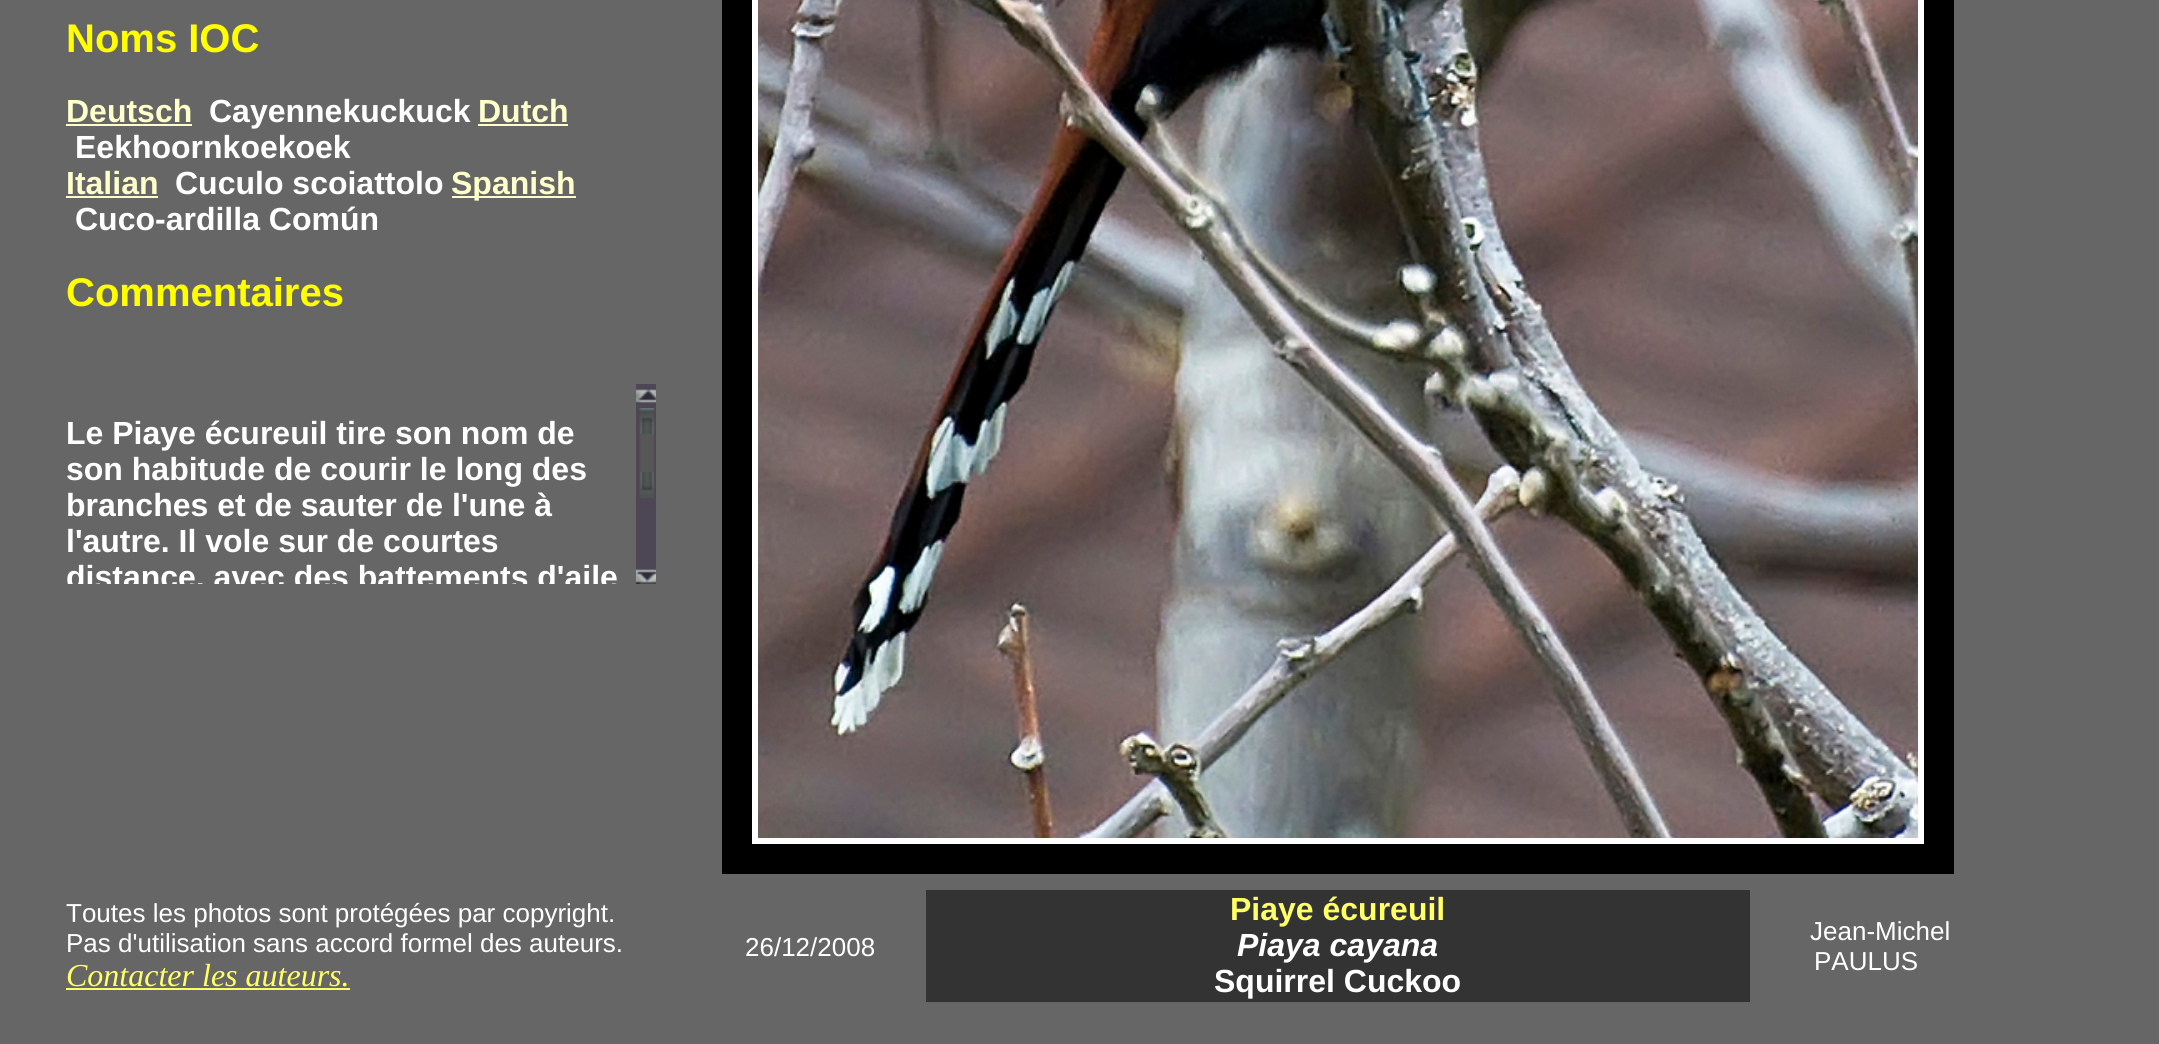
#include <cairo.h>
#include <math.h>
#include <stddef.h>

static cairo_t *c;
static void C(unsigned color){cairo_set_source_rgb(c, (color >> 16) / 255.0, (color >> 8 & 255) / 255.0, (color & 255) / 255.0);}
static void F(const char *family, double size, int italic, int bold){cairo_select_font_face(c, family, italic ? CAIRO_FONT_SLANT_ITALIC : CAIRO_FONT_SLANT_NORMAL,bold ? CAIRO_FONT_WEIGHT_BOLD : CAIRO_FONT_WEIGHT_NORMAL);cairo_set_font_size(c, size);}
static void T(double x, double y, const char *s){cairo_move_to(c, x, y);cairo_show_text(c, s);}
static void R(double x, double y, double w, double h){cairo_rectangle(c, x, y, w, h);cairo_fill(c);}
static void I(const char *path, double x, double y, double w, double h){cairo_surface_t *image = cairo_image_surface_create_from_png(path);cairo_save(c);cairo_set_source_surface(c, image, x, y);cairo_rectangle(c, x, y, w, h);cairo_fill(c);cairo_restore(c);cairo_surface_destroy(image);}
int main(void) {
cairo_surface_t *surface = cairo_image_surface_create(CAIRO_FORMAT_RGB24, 2159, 1044);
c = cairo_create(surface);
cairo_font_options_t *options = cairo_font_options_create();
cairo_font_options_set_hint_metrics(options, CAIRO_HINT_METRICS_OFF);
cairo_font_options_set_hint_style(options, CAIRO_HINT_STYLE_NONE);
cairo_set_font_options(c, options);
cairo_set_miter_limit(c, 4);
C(0x666666);
cairo_paint(c);
F("Liberation Sans",40,0,1);
C(0xffff00);
T(66,52,"Noms IOC");
F("Liberation Sans",32,0,1);
C(0xffffcc);
T(66,122,"Deutsch");
R(66,124,126,2);
C(0xffffff);
T(209,122,"Cayennekuckuck");
C(0xffffcc);
T(478,122,"Dutch");
R(478,124,90,2);
C(0xffffff);
T(75,158,"Eekhoornkoekoek");
C(0xffffcc);
T(66,194,"Italian");
R(66,196,92,2);
C(0xffffff);
T(175,194,"Cuculo scoiattolo");
C(0xffffcc);
R(452,196,124,2);
T(451,194,"Spanish");
C(0xffffff);
T(75,230,"Cuco-ardilla Común");
F("Liberation Sans",40,0,1);
C(0xffff00);
T(66,306,"Commentaires");
F("Liberation Sans",32,0,1);
C(0xffffff);
T(66,444,"Le Piaye écureuil tire son nom de");
T(66,480,"son habitude de courir le long des");
T(66,516,"branches et de sauter de l'une à");
T(66,552,"l'autre. Il vole sur de courtes");
cairo_save(c);
cairo_rectangle(c,66,384,570,200);
cairo_clip(c);
T(66,588,"distance, avec des battements d'aile");
cairo_restore(c);
C(0x4d4755);
R(636,384,20,185);
I("1.png",636,389,20,15);
I("2.png",636,408,20,90);
I("3.png",639,408,16,26);
I("4.png",640,472,14,26);
I("5.png",636,569,20,15);
C(0x000000);
R(722,0,1232,874);
C(0xffffff);
R(752,0,1172,844);
I("6.png",758,0,1160,838);
F("Liberation Sans",26,0,0);
T(66,922,"Toutes les photos sont protégées par copyright.");
T(66,952,"Pas d'utilisation sans accord formel des auteurs.");
F("Liberation Serif",32,1,0);
C(0xffff66);
T(66,986,"Contacter les auteurs.");
R(66,988,284,2);
F("Liberation Sans",26,0,0);
C(0xffffff);
T(745,956,"26/12/2008");
C(0x333333);
R(926,890,824,112);
F("Liberation Sans",32,0,1);
C(0xffff66);
T(1230,920,"Piaye écureuil");
F("Liberation Sans",32,1,1);
C(0xffffff);
T(1237,956,"Piaya cayana");
F("Liberation Sans",32,0,1);
T(1214,992,"Squirrel Cuckoo");
F("Liberation Sans",26,0,0);
T(1810,940,"Jean-Michel");
T(1814,970,"PAULUS");
cairo_surface_write_to_png(surface, "o.png");
cairo_font_options_destroy(options);
cairo_destroy(c);
cairo_surface_destroy(surface);
return 0;
}
